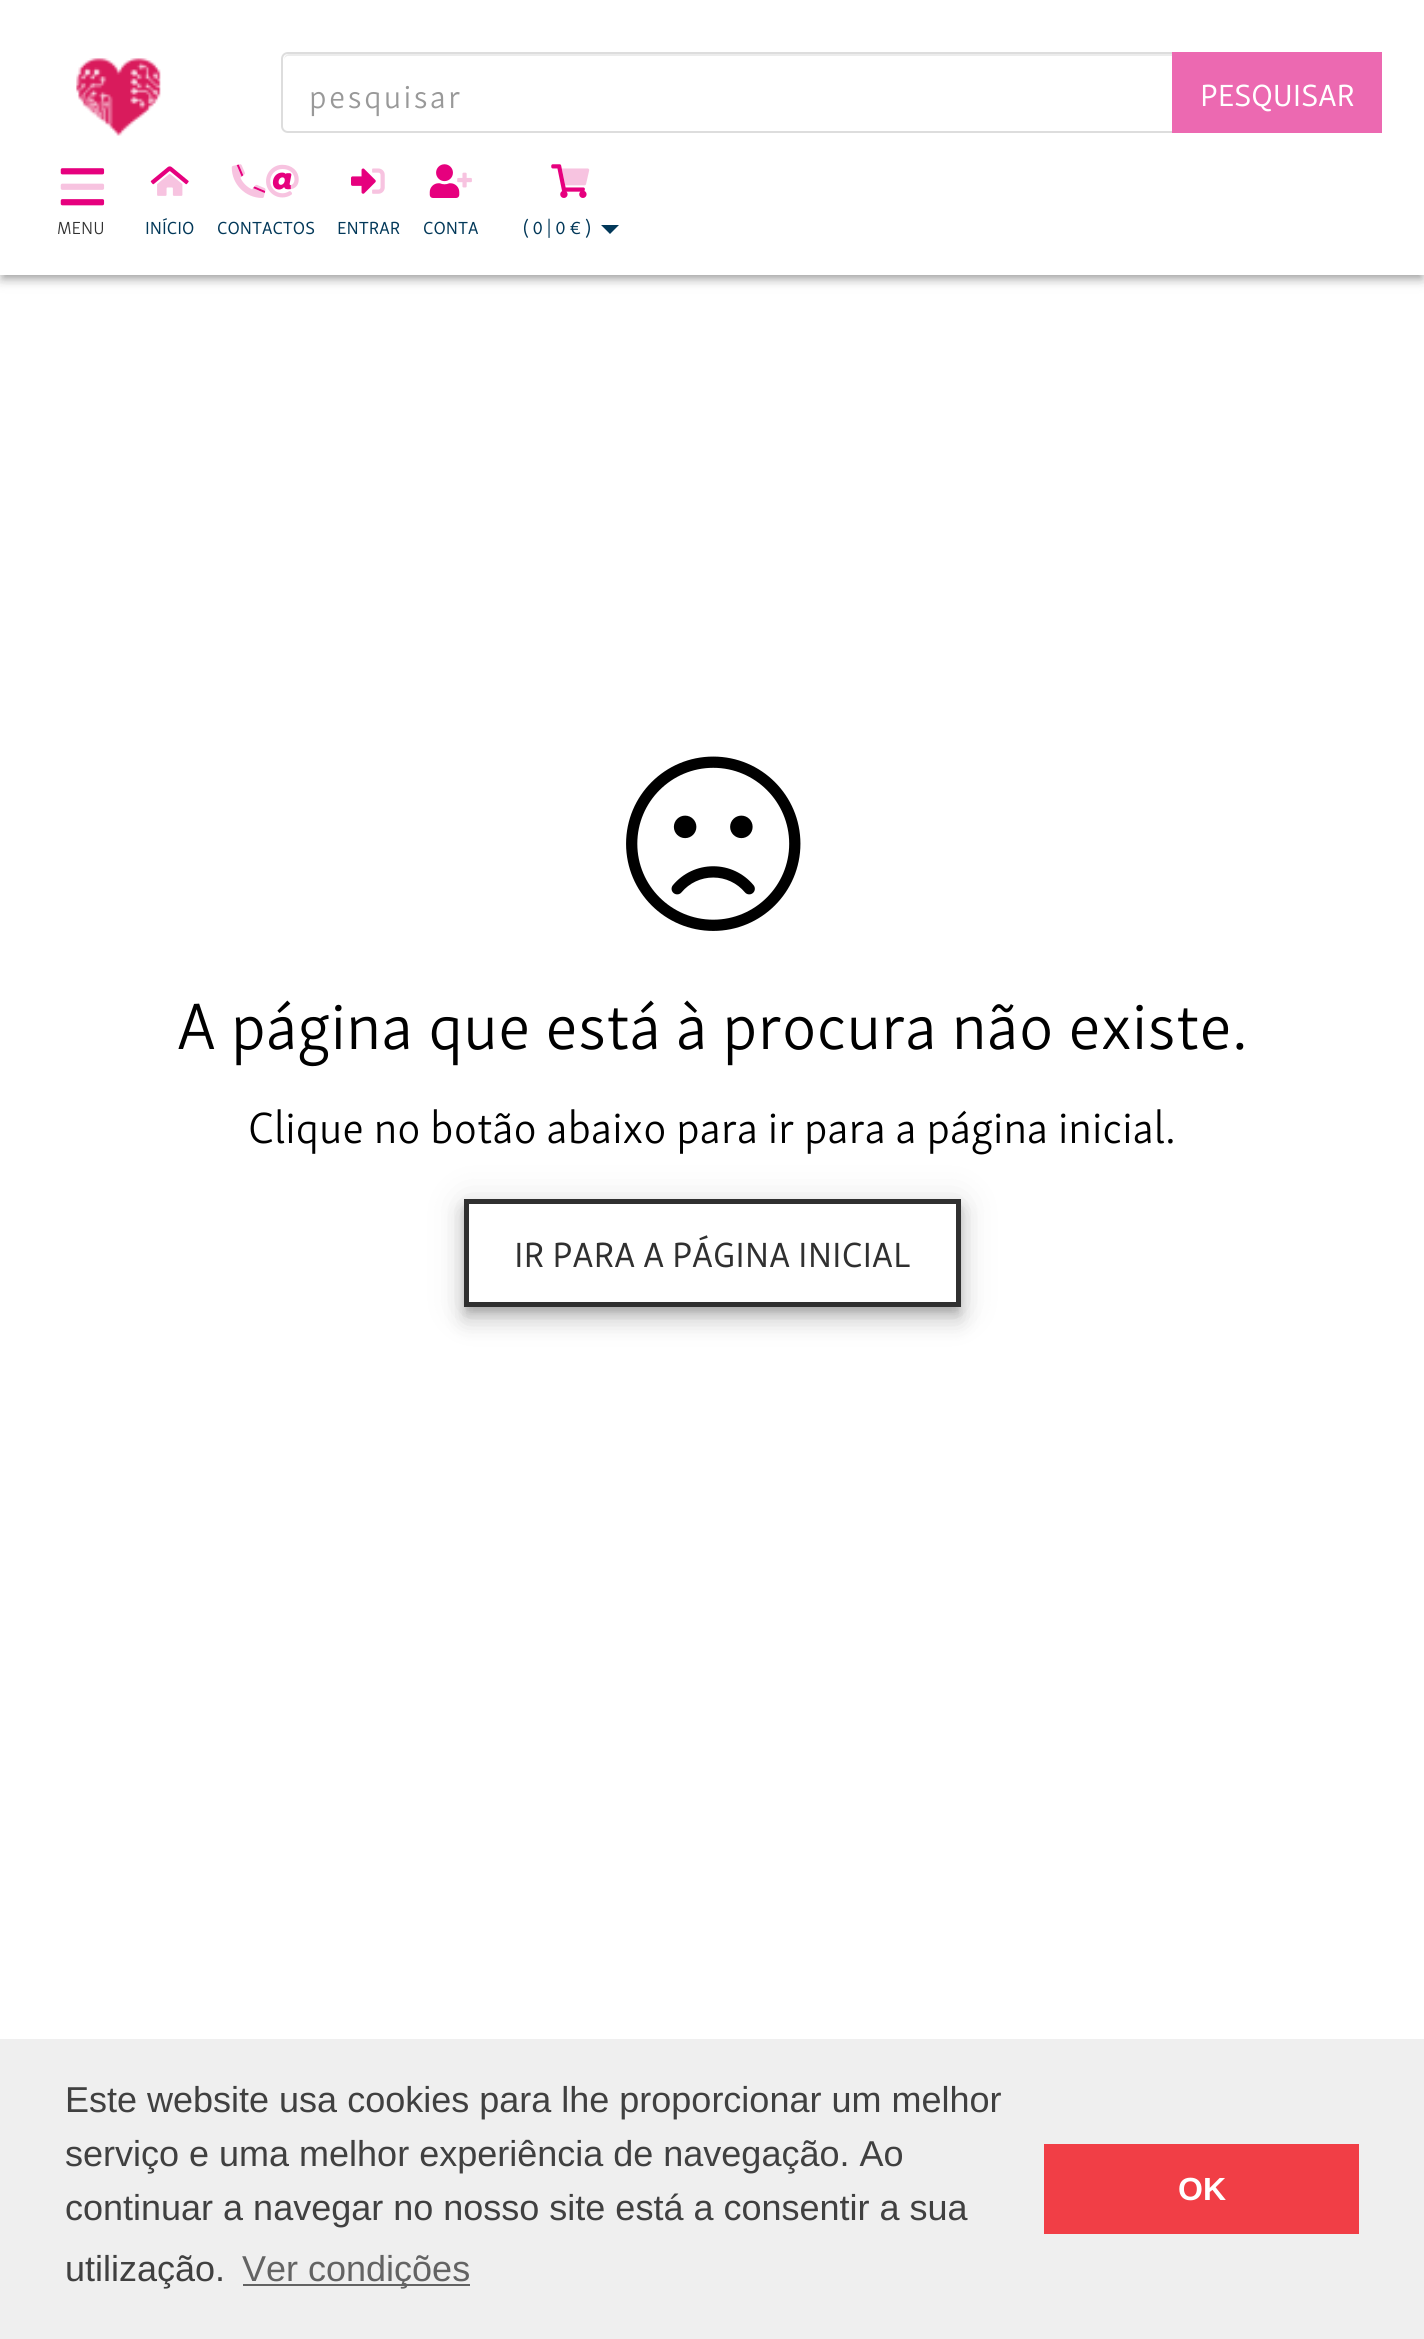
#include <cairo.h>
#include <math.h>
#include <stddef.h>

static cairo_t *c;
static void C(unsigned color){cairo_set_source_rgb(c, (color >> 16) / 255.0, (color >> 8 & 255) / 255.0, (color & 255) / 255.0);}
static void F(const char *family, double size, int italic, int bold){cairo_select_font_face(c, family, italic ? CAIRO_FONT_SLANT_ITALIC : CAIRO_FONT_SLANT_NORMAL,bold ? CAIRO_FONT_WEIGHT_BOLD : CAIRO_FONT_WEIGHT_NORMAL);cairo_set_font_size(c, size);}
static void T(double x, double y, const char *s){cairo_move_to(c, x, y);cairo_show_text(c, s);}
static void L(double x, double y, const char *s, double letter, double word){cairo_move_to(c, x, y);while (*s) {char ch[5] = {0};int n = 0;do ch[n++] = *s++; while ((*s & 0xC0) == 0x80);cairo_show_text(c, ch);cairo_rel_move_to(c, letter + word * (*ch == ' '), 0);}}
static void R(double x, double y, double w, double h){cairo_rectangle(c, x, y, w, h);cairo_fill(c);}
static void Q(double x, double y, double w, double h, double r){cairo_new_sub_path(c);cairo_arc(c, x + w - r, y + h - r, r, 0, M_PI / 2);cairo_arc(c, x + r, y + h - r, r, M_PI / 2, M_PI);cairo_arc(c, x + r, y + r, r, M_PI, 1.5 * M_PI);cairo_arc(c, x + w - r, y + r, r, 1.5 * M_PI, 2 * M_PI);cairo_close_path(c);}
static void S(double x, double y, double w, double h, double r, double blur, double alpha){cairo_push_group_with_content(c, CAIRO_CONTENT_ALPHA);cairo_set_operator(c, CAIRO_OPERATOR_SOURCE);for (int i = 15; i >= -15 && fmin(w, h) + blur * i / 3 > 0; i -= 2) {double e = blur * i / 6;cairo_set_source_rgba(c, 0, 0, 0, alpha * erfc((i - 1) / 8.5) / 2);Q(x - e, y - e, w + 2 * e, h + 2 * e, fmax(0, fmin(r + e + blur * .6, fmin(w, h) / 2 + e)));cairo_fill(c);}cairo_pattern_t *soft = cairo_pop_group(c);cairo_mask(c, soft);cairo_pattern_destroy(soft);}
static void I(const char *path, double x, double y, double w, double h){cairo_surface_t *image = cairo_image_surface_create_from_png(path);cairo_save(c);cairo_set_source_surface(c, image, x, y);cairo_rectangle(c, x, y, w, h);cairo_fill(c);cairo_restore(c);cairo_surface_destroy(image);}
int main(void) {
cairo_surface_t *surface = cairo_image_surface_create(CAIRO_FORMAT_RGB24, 1424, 2339);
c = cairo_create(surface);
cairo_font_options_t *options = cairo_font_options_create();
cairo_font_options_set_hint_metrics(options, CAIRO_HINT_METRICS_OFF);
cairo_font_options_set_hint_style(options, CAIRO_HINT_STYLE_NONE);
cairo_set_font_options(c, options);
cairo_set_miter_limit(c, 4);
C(0xffffff);
cairo_paint(c);
C(0x000000);
S(0,2,1424,275,0,9,.12);
S(5,11,1415,266,0,3.5,.2);
S(0,7,1424,274,0,4.5,.14);
C(0xffffff);
R(0,0,1424,275);
I("1.png",76,58,85,78);
C(0xececec);
cairo_new_path(c);
cairo_move_to(c,288,56);
cairo_line_to(c,1172,56);
cairo_line_to(c,1172,54);
cairo_line_to(c,289,54);
cairo_curve_to(c,285,54,284,58,284,61);
cairo_curve_to(c,284,58,286,56,288,56);
cairo_close_path(c);
cairo_fill(c);
cairo_new_path(c);
cairo_move_to(c,288,53);
cairo_line_to(c,1174,53);
cairo_line_to(c,1174,132);
cairo_line_to(c,288,132);
cairo_curve_to(c,284.5,132,282,129.5,282,126);
cairo_line_to(c,282,59);
cairo_curve_to(c,282,55.5,284.5,53,288,53);
cairo_close_path(c);
C(0xdddddd);
cairo_stroke(c);
F("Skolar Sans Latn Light",33.75,0,0);
C(0x999999);
L(309,108,"pesquisar",2.25,0);
C(0xec69b1);
R(1172,52,210,81);
F("Skolar Sans Latn",31.5,0,0);
C(0xffffff);
T(1200,106,"PESQUISAR");
I("2.png",60,168,45,38);
F("Skolar Sans Latn Light",18,0,0);
C(0x303030);
T(57,234,"MENU");
I("3.png",150,166,39,30);
F("Skolar Sans Latn",18,0,0);
C(0x023859);
T(145,234,"INÍCIO");
I("4.png",231,164,35,34);
I("5.png",266,164,33,34);
T(217,234,"CONTACTOS");
I("6.png",351,168,34,26);
T(337,234,"ENTRAR");
I("7.png",429,164,43,34);
T(423,234,"CONTA");
I("8.png",551,164,39,34);
T(523,234,"( 0 | 0 € )");
cairo_new_path(c);
cairo_move_to(c,601,225);
cairo_line_to(c,619,225);
cairo_line_to(c,610,234);
cairo_close_path(c);
cairo_fill(c);
I("9.png",626,756,175,175);
F("Skolar Sans Latn Light",67.5,0,0);
C(0x000000);
T(177,1049,"A página que está à procura não existe.");
F("Skolar Sans Latn Light",45,0,0);
T(248,1143,"Clique no botão abaixo para ir para a página inicial.");
cairo_save(c);
cairo_set_fill_rule(c,CAIRO_FILL_RULE_EVEN_ODD);
cairo_new_path(c);
cairo_move_to(c,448,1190);
cairo_line_to(c,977,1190);
cairo_line_to(c,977,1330);
cairo_line_to(c,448,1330);
cairo_close_path(c);
cairo_move_to(c,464,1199);
cairo_line_to(c,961,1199);
cairo_line_to(c,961,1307);
cairo_line_to(c,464,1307);
cairo_close_path(c);
cairo_clip(c);
C(0x000000);
S(466,1208,493,104,0,5.5,.2);
cairo_restore(c);
cairo_save(c);
cairo_set_fill_rule(c,CAIRO_FILL_RULE_EVEN_ODD);
cairo_new_path(c);
cairo_move_to(c,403,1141);
cairo_line_to(c,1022,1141);
cairo_line_to(c,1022,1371);
cairo_line_to(c,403,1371);
cairo_close_path(c);
cairo_move_to(c,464,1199);
cairo_line_to(c,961,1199);
cairo_line_to(c,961,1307);
cairo_line_to(c,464,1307);
cairo_close_path(c);
cairo_clip(c);
C(0x000000);
S(464,1202,497,108,0,20,.12);
cairo_restore(c);
cairo_save(c);
cairo_set_fill_rule(c,CAIRO_FILL_RULE_EVEN_ODD);
cairo_new_path(c);
cairo_move_to(c,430,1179);
cairo_line_to(c,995,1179);
cairo_line_to(c,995,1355);
cairo_line_to(c,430,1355);
cairo_close_path(c);
cairo_move_to(c,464,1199);
cairo_line_to(c,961,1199);
cairo_line_to(c,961,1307);
cairo_line_to(c,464,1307);
cairo_close_path(c);
cairo_clip(c);
C(0x000000);
S(464,1213,497,108,0,11,.14);
cairo_restore(c);
cairo_rectangle(c,466.5,1201.5,492,103);
C(0x303030);
cairo_set_line_width(c,5);
cairo_stroke(c);
F("Skolar Sans Latn",36,0,0);
T(514,1267,"IR PARA A PÁGINA INICIAL");
C(0xefefef);
R(0,2039,1424,300);
F("Liberation Sans",36,0,0);
C(0x404040);
T(65,2112,"Este website usa cookies para lhe proporcionar um melhor");
T(65,2166,"serviço e uma melhor experiência de navegação. Ao");
T(65,2220,"continuar a navegar no nosso site está a consentir a sua");
T(65,2281,"utilização.");
C(0x636363);
R(243,2284,227,2);
T(242,2281,"Ver condições");
C(0xf13e46);
R(1044,2144,315,90);
F("Liberation Sans",32,0,1);
C(0xffffff);
T(1178,2200,"OK");
cairo_surface_write_to_png(surface, "o.png");
cairo_font_options_destroy(options);
cairo_destroy(c);
cairo_surface_destroy(surface);
return 0;
}
